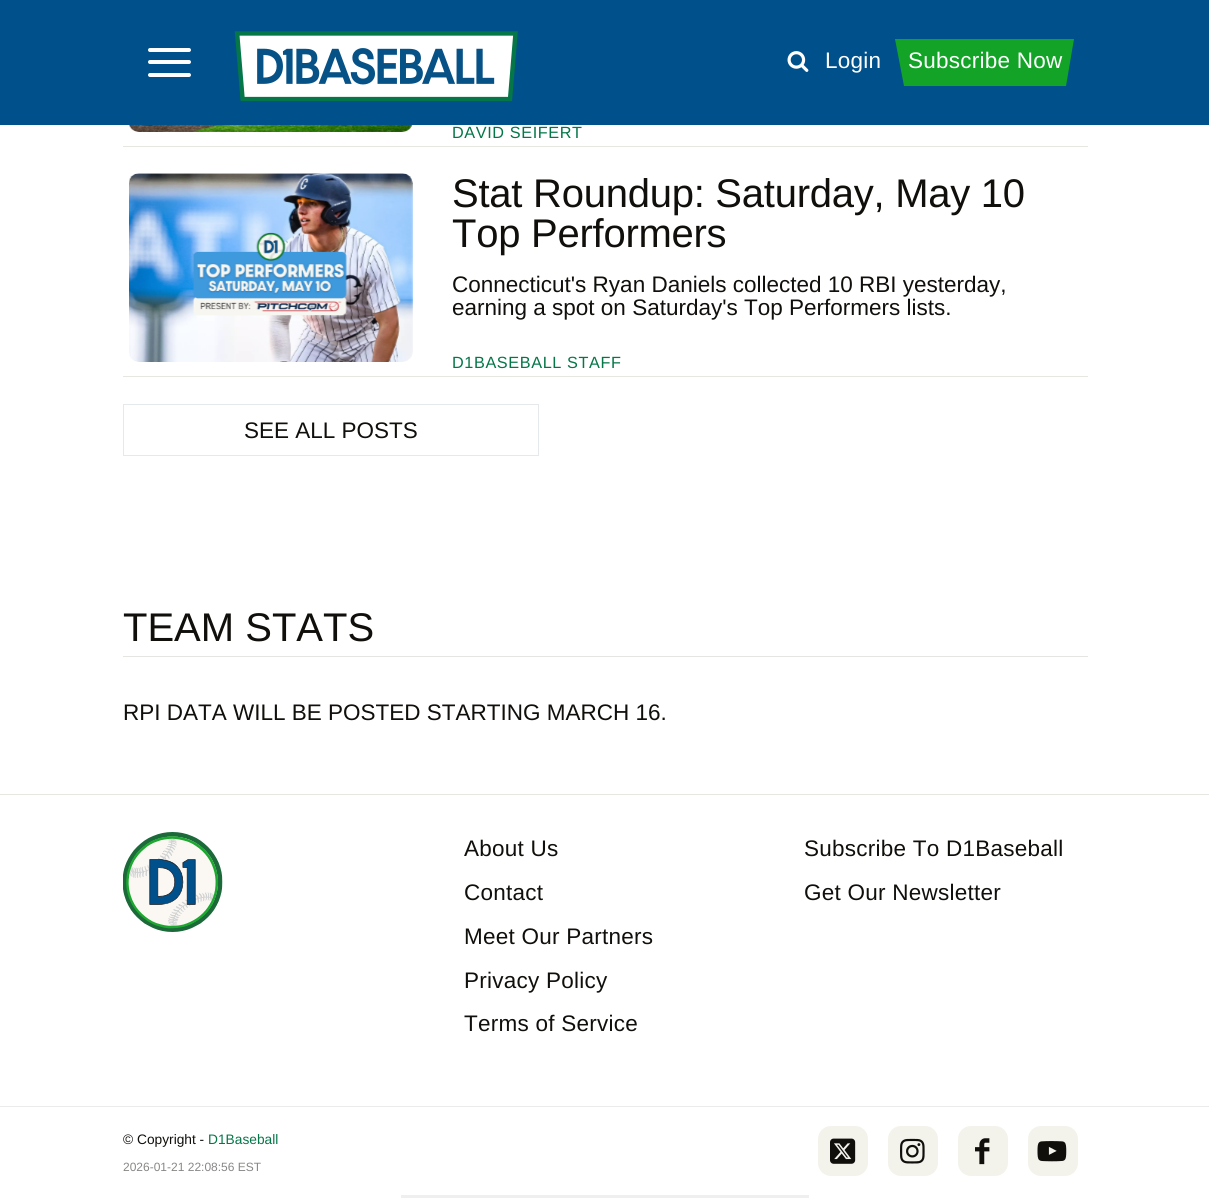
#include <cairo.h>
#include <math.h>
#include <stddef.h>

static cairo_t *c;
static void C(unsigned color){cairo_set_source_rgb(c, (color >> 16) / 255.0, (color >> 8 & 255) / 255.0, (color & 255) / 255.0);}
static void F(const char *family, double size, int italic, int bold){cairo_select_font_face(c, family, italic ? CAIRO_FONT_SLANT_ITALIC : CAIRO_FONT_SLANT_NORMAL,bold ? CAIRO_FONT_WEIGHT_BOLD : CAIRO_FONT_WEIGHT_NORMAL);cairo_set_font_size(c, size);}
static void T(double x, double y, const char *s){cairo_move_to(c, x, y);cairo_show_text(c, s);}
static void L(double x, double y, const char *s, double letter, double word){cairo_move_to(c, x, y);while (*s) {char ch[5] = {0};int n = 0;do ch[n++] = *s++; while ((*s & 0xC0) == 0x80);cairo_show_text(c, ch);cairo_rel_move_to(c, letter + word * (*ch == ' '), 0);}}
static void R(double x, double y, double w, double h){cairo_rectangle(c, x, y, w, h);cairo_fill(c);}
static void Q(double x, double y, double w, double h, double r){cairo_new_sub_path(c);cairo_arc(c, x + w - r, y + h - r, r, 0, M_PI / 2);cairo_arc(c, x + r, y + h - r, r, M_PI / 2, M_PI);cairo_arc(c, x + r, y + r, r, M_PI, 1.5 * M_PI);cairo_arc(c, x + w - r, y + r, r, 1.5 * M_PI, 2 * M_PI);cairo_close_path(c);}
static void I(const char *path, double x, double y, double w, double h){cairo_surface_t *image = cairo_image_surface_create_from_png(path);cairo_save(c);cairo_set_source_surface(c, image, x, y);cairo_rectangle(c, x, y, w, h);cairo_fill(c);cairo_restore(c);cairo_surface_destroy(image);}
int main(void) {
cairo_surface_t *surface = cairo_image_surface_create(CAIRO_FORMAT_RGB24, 1209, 1198);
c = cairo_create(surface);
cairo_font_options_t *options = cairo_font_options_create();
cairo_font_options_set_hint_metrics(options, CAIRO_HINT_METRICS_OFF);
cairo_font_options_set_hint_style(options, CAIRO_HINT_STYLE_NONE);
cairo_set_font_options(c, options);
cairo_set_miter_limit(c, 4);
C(0xffffff);
cairo_paint(c);
C(0x00508b);
R(0,0,1209,125);
C(0xffffff);
Q(148,60,43,4,2);
cairo_fill(c);
Q(148,48,43,4,2);
cairo_fill(c);
Q(148,73,43,4,2);
cairo_fill(c);
I("1.png",234,31,284,70);
I("2.png",787,51,22,21);
F("Liberation Sans",22.5,0,0);
L(825,68,"Login",.25,0);
C(0x13a427);
cairo_new_path(c);
cairo_move_to(c,904,86);
cairo_line_to(c,1066,86);
cairo_line_to(c,1074,39);
cairo_line_to(c,895,39);
cairo_close_path(c);
cairo_fill(c);
C(0xffffff);
L(908,68,"Subscribe Now",.25,0);
C(0xe7e7e2);
R(123,146,965,1);
I("3.png",129,125,284,7);
F("Liberation Sans",16.25,0,0);
C(0x047647);
L(452,138,"DAVID SEIFERT",.6,0);
C(0xe7e7e2);
R(123,376,965,1);
I("4.png",129,173,284,189);
F("Liberation Sans",40,0,0);
C(0x110f0b);
L(452,207,"Stat Roundup: Saturday, May 10",-.25,0);
L(452,247,"Top Performers",-.25,0);
F("Liberation Sans",22.5,0,0);
T(452,292,"Connecticut's Ryan Daniels collected 10 RBI yesterday,");
T(452,315,"earning a spot on Saturday's Top Performers lists.");
F("Liberation Sans",16.25,0,0);
C(0x047647);
L(452,368,"D1BASEBALL STAFF",.6,0);
cairo_rectangle(c,123.5,404.5,415,51);
C(0xe5e9eb);
cairo_set_line_width(c,1);
cairo_stroke(c);
F("Liberation Sans",22.5,0,0);
C(0x110f0b);
T(244,438,"SEE ALL POSTS");
C(0xe5e5e1);
R(123,656,965,1);
F("Liberation Sans",40,0,0);
C(0x110f0b);
T(123,641,"TEAM STATS");
F("Liberation Sans",22.5,0,0);
T(123,720,"RPI DATA WILL BE POSTED STARTING MARCH 16.");
C(0xe7e7e2);
R(0,794,1209,1);
I("5.png",123,832,100,100);
C(0x110f0b);
L(464,856,"About Us",.25,0);
L(464,900,"Contact",.25,0);
L(464,944,"Meet Our Partners",.25,0);
L(464,988,"Privacy Policy",.25,0);
L(464,1031,"Terms of Service",.25,0);
L(804,856,"Subscribe To D1Baseball",.25,0);
L(804,900,"Get Our Newsletter",.25,0);
C(0xebebeb);
R(0,1106,1209,1);
F("Liberation Sans",13.75,0,0);
C(0x110f0b);
T(123,1144,"© Copyright -");
C(0x047647);
T(208,1144,"D1Baseball");
F("Liberation Sans",12,0,0);
C(0x888785);
T(123,1171,"2026-01-21 22:08:56 EST");
C(0xf3f3ec);
Q(818,1126,50,50,13);
cairo_fill(c);
I("6.png",830,1138,26,26);
Q(888,1126,50,50,13);
cairo_fill(c);
I("7.png",900,1138,25,26);
Q(958,1126,50,50,13);
cairo_fill(c);
I("8.png",975,1138,15,27);
Q(1028,1126,50,50,13);
cairo_fill(c);
I("9.png",1037,1141,30,21);
C(0xefefef);
R(401,1195,408,3);
cairo_surface_write_to_png(surface, "o.png");
cairo_font_options_destroy(options);
cairo_destroy(c);
cairo_surface_destroy(surface);
return 0;
}
